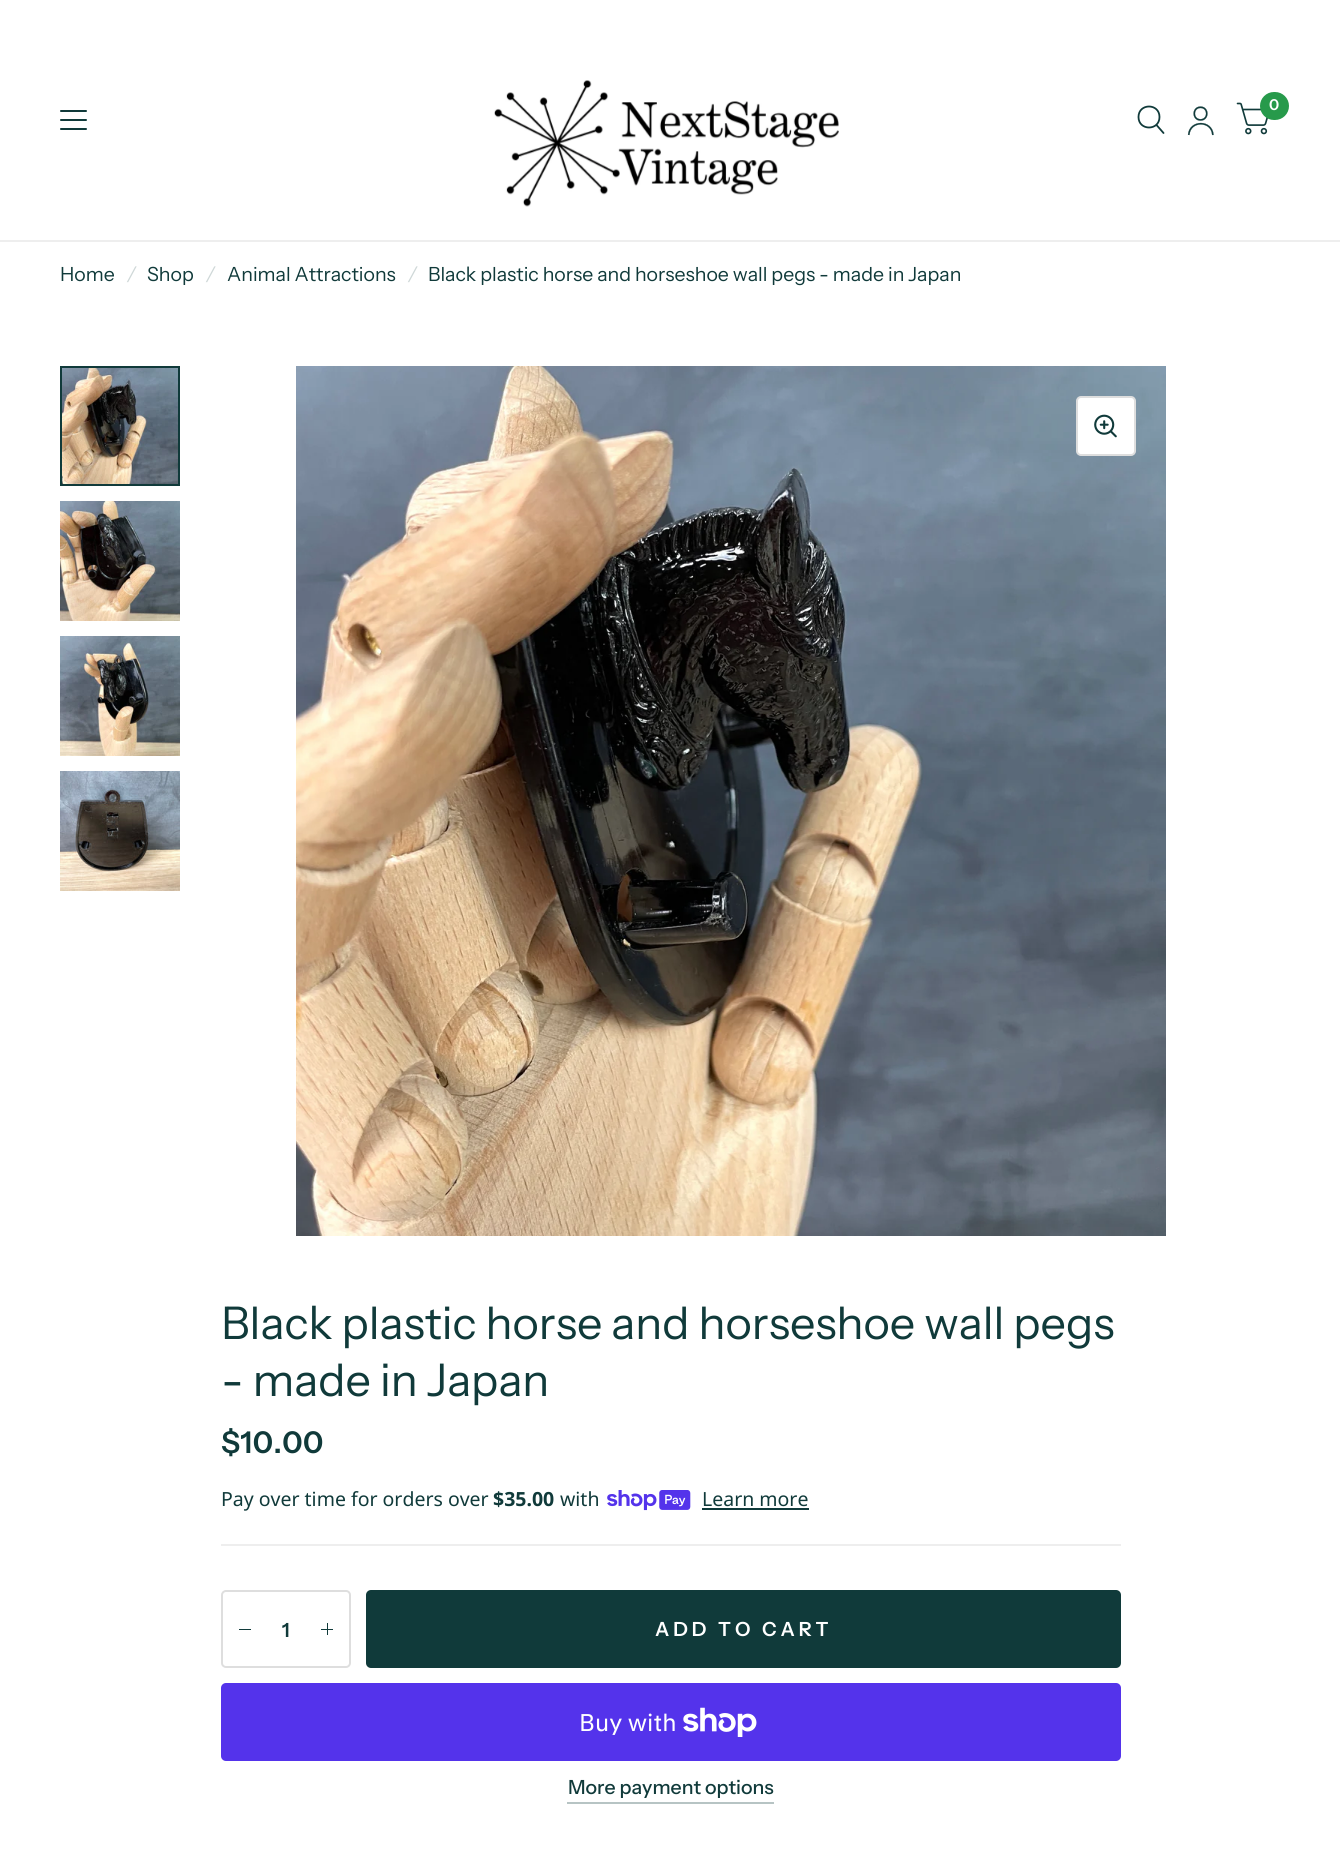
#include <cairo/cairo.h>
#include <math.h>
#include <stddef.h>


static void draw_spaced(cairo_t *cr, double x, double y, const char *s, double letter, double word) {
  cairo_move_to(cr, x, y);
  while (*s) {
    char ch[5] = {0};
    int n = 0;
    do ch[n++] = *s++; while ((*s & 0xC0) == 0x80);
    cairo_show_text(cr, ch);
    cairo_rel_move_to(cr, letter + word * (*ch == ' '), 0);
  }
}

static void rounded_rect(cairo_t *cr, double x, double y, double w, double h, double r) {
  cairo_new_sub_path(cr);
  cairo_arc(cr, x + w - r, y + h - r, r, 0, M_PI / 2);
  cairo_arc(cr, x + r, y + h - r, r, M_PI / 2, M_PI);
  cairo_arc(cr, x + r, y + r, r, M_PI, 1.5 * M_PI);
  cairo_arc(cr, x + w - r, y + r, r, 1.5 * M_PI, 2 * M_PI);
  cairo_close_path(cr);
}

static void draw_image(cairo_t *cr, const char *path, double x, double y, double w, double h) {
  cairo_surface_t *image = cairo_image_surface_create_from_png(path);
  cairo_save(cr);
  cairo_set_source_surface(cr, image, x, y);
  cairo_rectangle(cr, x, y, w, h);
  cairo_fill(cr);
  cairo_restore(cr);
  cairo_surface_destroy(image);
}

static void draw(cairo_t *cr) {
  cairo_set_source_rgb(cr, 1, 1, 1);
  cairo_paint(cr);
  cairo_set_source_rgb(cr, 238 / 255.0, 238 / 255.0, 238 / 255.0);
  cairo_rectangle(cr, 0, 240, 1340, 2);
  cairo_fill(cr);
  draw_image(cr, "images/1.png", 494, 80, 345, 127);
  cairo_new_path(cr);
  cairo_move_to(cr, 1156.5, 125);
  cairo_line_to(cr, 1163.5, 133);
  cairo_move_to(cr, 1159.5, 117);
  cairo_curve_to(cr, 1159.5, 131, 1138.5, 131, 1138.5, 117);
  cairo_curve_to(cr, 1138.5, 103, 1159.5, 103, 1159.5, 117);
  cairo_close_path(cr);
  cairo_set_source_rgb(cr, 16 / 255.0, 58 / 255.0, 58 / 255.0);
  cairo_set_line_width(cr, 1.8);
  cairo_set_line_cap(cr, CAIRO_LINE_CAP_ROUND);
  cairo_set_line_join(cr, CAIRO_LINE_JOIN_ROUND);
  cairo_stroke(cr);
  draw_image(cr, "images/2.png", 1187, 106, 27, 30);
  draw_image(cr, "images/3.png", 1236, 102, 32, 33);
  cairo_set_source_rgb(cr, 39 / 255.0, 154 / 255.0, 75 / 255.0);
  rounded_rect(cr, 1260, 92, 29, 28, 14);
  cairo_fill(cr);
  cairo_set_source_rgb(cr, 16 / 255.0, 58 / 255.0, 58 / 255.0);
  rounded_rect(cr, 60, 110, 27, 2, 1);
  cairo_fill(cr);
  rounded_rect(cr, 60, 119, 27, 2, 1);
  cairo_fill(cr);
  rounded_rect(cr, 60, 128, 27, 2, 1);
  cairo_fill(cr);
  draw_image(cr, "images/4.png", 62, 368, 116, 116);
  cairo_rectangle(cr, 61, 367, 118, 118);
  cairo_set_line_width(cr, 2);
  cairo_set_line_cap(cr, CAIRO_LINE_CAP_BUTT);
  cairo_set_line_join(cr, CAIRO_LINE_JOIN_MITER);
  cairo_stroke(cr);
  draw_image(cr, "images/5.png", 60, 501, 120, 120);
  draw_image(cr, "images/6.png", 60, 636, 120, 120);
  draw_image(cr, "images/7.png", 60, 771, 120, 120);
  draw_image(cr, "images/8.png", 296, 366, 870, 870);
  cairo_set_source_rgb(cr, 1, 1, 1);
  rounded_rect(cr, 1077, 397, 58, 58, 4);
  cairo_fill_preserve(cr);
  cairo_set_source_rgb(cr, 222 / 255.0, 222 / 255.0, 222 / 255.0);
  cairo_stroke(cr);
  draw_image(cr, "images/9.png", 1094, 414, 23, 24);
  cairo_set_source_rgb(cr, 238 / 255.0, 238 / 255.0, 238 / 255.0);
  cairo_rectangle(cr, 221, 1544, 900, 2);
  cairo_fill(cr);
  draw_image(cr, "images/10.png", 607, 1490, 84, 21);
  cairo_set_source_rgb(cr, 16 / 255.0, 58 / 255.0, 58 / 255.0);
  cairo_rectangle(cr, 702, 1508, 107, 2);
  cairo_fill(cr);
  rounded_rect(cr, 222, 1591, 128, 76, 4);
  cairo_set_source_rgb(cr, 222 / 255.0, 222 / 255.0, 222 / 255.0);
  cairo_stroke(cr);
  cairo_set_source_rgb(cr, 16 / 255.0, 58 / 255.0, 58 / 255.0);
  cairo_rectangle(cr, 239, 1629, 12, 1);
  cairo_fill(cr);
  cairo_rectangle(cr, 327, 1623, 1, 12);
  cairo_fill(cr);
  cairo_rectangle(cr, 321, 1629, 12, 1);
  cairo_fill(cr);
  rounded_rect(cr, 366, 1590, 755, 78, 5);
  cairo_fill(cr);
  cairo_set_source_rgb(cr, 84 / 255.0, 51 / 255.0, 235 / 255.0);
  rounded_rect(cr, 221, 1683, 900, 78, 5);
  cairo_fill(cr);
  draw_image(cr, "images/11.png", 683, 1707, 74, 30);
  cairo_set_source_rgb(cr, 183 / 255.0, 196 / 255.0, 196 / 255.0);
  cairo_rectangle(cr, 567, 1802, 207, 2);
  cairo_fill(cr);
  cairo_select_font_face(cr, "Instrument Sans SemiBold", CAIRO_FONT_SLANT_NORMAL, CAIRO_FONT_WEIGHT_NORMAL);
  cairo_set_font_size(cr, 15);
  cairo_set_source_rgb(cr, 1, 1, 1);
  cairo_move_to(cr, 1269, 110);
  cairo_show_text(cr, "0");
  cairo_select_font_face(cr, "Instrument Sans", CAIRO_FONT_SLANT_NORMAL, CAIRO_FONT_WEIGHT_NORMAL);
  cairo_set_font_size(cr, 19.5);
  cairo_set_source_rgb(cr, 16 / 255.0, 58 / 255.0, 58 / 255.0);
  cairo_move_to(cr, 60, 281);
  cairo_show_text(cr, "Home");
  cairo_select_font_face(cr, "Instrument Sans", CAIRO_FONT_SLANT_ITALIC, CAIRO_FONT_WEIGHT_NORMAL);
  cairo_set_source_rgb(cr, 207 / 255.0, 216 / 255.0, 216 / 255.0);
  cairo_move_to(cr, 127, 281);
  cairo_show_text(cr, "/");
  cairo_select_font_face(cr, "Instrument Sans", CAIRO_FONT_SLANT_NORMAL, CAIRO_FONT_WEIGHT_NORMAL);
  cairo_set_source_rgb(cr, 16 / 255.0, 58 / 255.0, 58 / 255.0);
  cairo_move_to(cr, 147, 281);
  cairo_show_text(cr, "Shop");
  cairo_select_font_face(cr, "Instrument Sans", CAIRO_FONT_SLANT_ITALIC, CAIRO_FONT_WEIGHT_NORMAL);
  cairo_set_source_rgb(cr, 207 / 255.0, 216 / 255.0, 216 / 255.0);
  cairo_move_to(cr, 206, 281);
  cairo_show_text(cr, "/");
  cairo_select_font_face(cr, "Instrument Sans", CAIRO_FONT_SLANT_NORMAL, CAIRO_FONT_WEIGHT_NORMAL);
  cairo_set_source_rgb(cr, 16 / 255.0, 58 / 255.0, 58 / 255.0);
  cairo_move_to(cr, 227, 281);
  cairo_show_text(cr, "Animal Attractions");
  cairo_select_font_face(cr, "Instrument Sans", CAIRO_FONT_SLANT_ITALIC, CAIRO_FONT_WEIGHT_NORMAL);
  cairo_set_source_rgb(cr, 207 / 255.0, 216 / 255.0, 216 / 255.0);
  cairo_move_to(cr, 408, 281);
  cairo_show_text(cr, "/");
  cairo_select_font_face(cr, "Instrument Sans", CAIRO_FONT_SLANT_NORMAL, CAIRO_FONT_WEIGHT_NORMAL);
  cairo_set_source_rgb(cr, 16 / 255.0, 58 / 255.0, 58 / 255.0);
  cairo_move_to(cr, 428, 281);
  cairo_show_text(cr, "Black plastic horse and horseshoe wall pegs - made in Japan");
  cairo_set_font_size(cr, 45);
  cairo_move_to(cr, 221, 1339);
  cairo_show_text(cr, "Black plastic horse and horseshoe wall pegs");
  cairo_move_to(cr, 221, 1396);
  cairo_show_text(cr, "- made in Japan");
  cairo_select_font_face(cr, "Instrument Sans SemiBold", CAIRO_FONT_SLANT_NORMAL, CAIRO_FONT_WEIGHT_NORMAL);
  cairo_set_font_size(cr, 30);
  draw_spaced(cr, 221, 1453, "$10.00", 0.5, 0);
  cairo_select_font_face(cr, "Noto Sans", CAIRO_FONT_SLANT_NORMAL, CAIRO_FONT_WEIGHT_NORMAL);
  cairo_set_font_size(cr, 19.5);
  cairo_move_to(cr, 221, 1506);
  cairo_show_text(cr, "Pay over time for orders over");
  cairo_select_font_face(cr, "Noto Sans", CAIRO_FONT_SLANT_NORMAL, CAIRO_FONT_WEIGHT_BOLD);
  cairo_move_to(cr, 493, 1506);
  cairo_show_text(cr, "$35.00");
  cairo_select_font_face(cr, "Noto Sans", CAIRO_FONT_SLANT_NORMAL, CAIRO_FONT_WEIGHT_NORMAL);
  cairo_move_to(cr, 560, 1506);
  cairo_show_text(cr, "with");
  cairo_move_to(cr, 702, 1506);
  cairo_show_text(cr, "Learn more");
  cairo_select_font_face(cr, "Instrument Sans SemiBold", CAIRO_FONT_SLANT_NORMAL, CAIRO_FONT_WEIGHT_NORMAL);
  cairo_move_to(cr, 282, 1637);
  cairo_show_text(cr, "1");
  cairo_set_source_rgb(cr, 1, 1, 1);
  draw_spaced(cr, 655, 1636, "ADD TO CART", 3.9, 0);
  cairo_select_font_face(cr, "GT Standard", CAIRO_FONT_SLANT_NORMAL, CAIRO_FONT_WEIGHT_NORMAL);
  cairo_set_font_size(cr, 24);
  cairo_move_to(cr, 579, 1731);
  cairo_show_text(cr, "Buy with");
  cairo_select_font_face(cr, "Instrument Sans Medium", CAIRO_FONT_SLANT_NORMAL, CAIRO_FONT_WEIGHT_NORMAL);
  cairo_set_font_size(cr, 19.5);
  cairo_set_source_rgb(cr, 16 / 255.0, 58 / 255.0, 58 / 255.0);
  cairo_move_to(cr, 568, 1794);
  cairo_show_text(cr, "More payment options");
}

int main(void) {
  cairo_surface_t *surface = cairo_image_surface_create(CAIRO_FORMAT_RGB24, 1340, 1862);
  cairo_t *cr = cairo_create(surface);
  cairo_font_options_t *options = cairo_font_options_create();
  cairo_font_options_set_hint_metrics(options, CAIRO_HINT_METRICS_OFF);
  cairo_font_options_set_hint_style(options, CAIRO_HINT_STYLE_NONE);
  cairo_set_font_options(cr, options);
  cairo_set_miter_limit(cr, 4);
  draw(cr);
  cairo_surface_write_to_png(surface, "out.png");
  cairo_font_options_destroy(options);
  cairo_destroy(cr);
  cairo_surface_destroy(surface);
  return 0;
}
